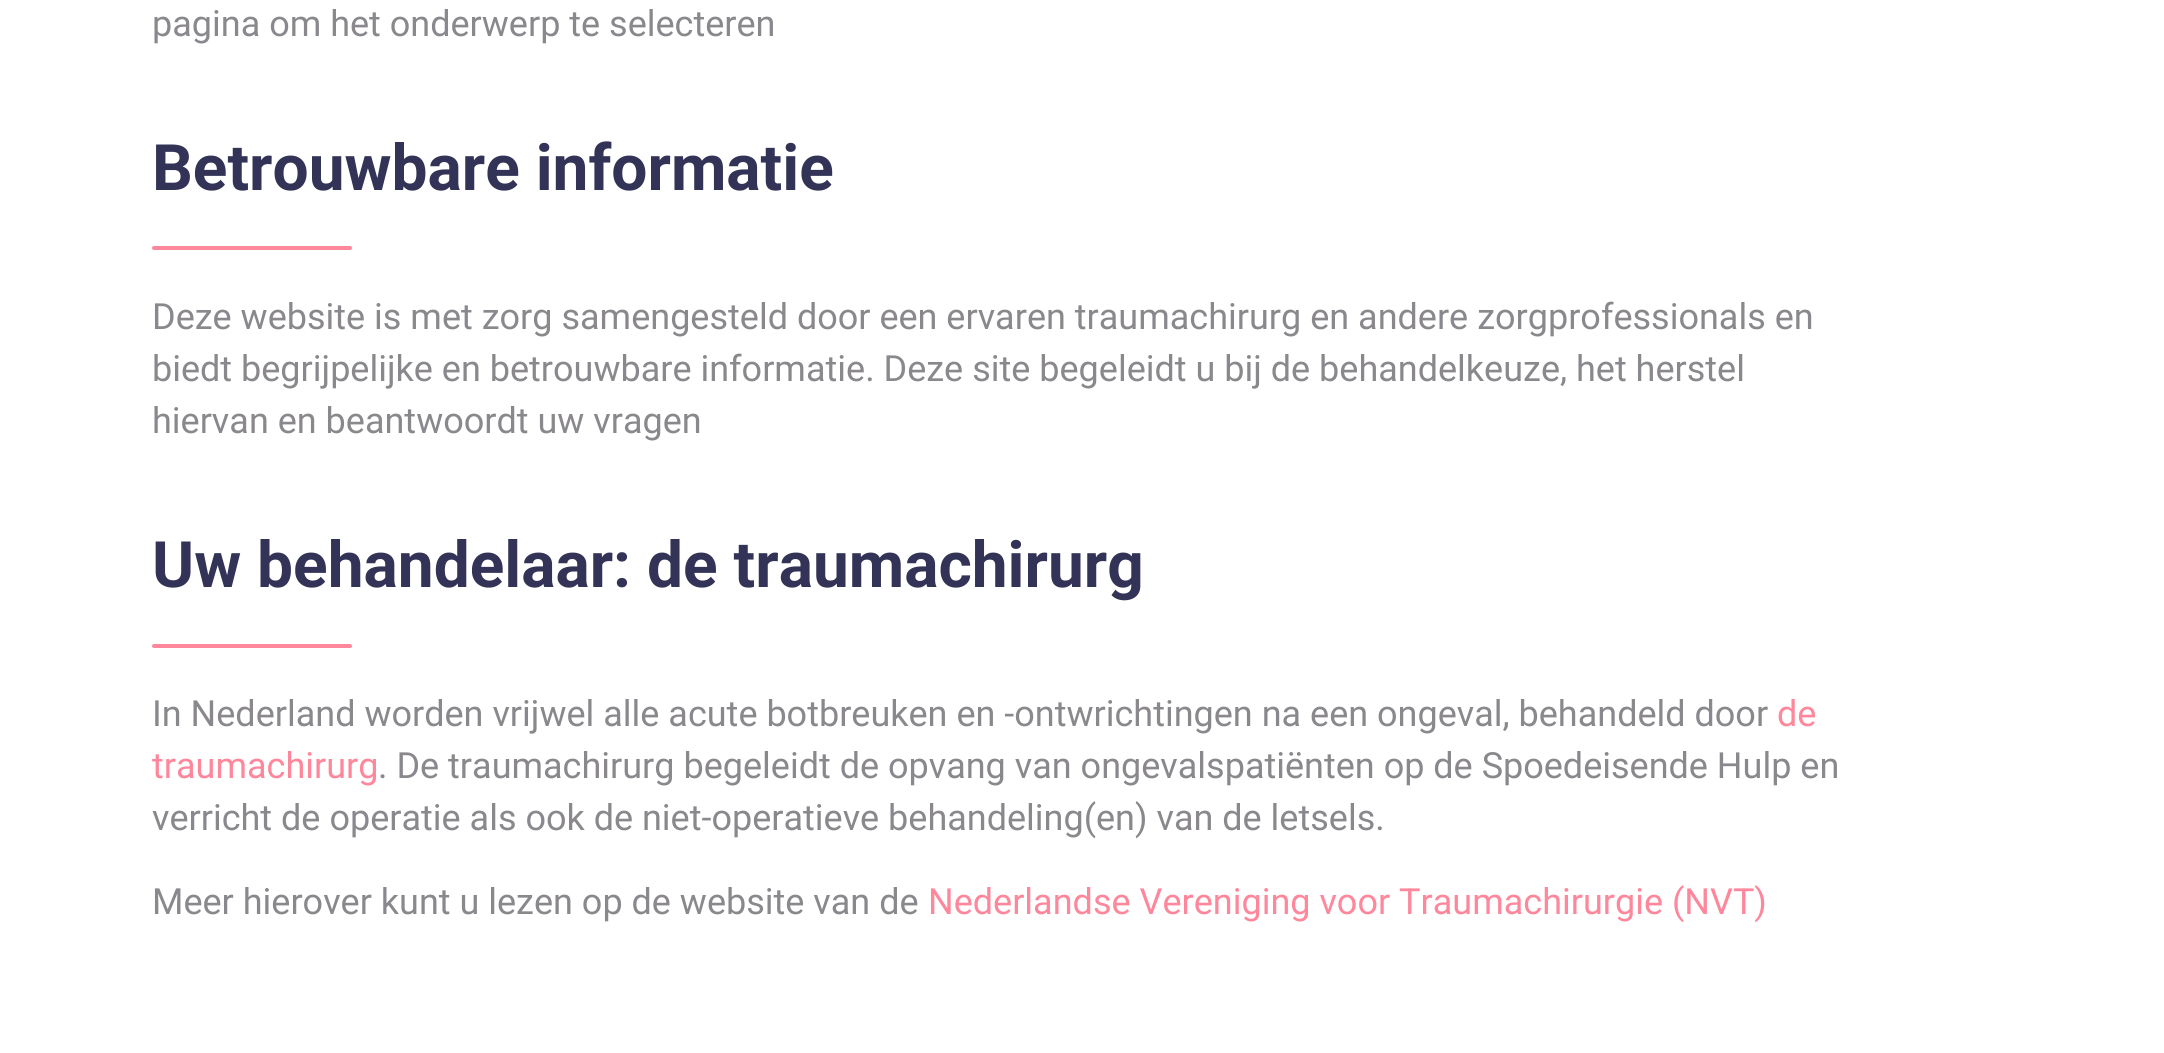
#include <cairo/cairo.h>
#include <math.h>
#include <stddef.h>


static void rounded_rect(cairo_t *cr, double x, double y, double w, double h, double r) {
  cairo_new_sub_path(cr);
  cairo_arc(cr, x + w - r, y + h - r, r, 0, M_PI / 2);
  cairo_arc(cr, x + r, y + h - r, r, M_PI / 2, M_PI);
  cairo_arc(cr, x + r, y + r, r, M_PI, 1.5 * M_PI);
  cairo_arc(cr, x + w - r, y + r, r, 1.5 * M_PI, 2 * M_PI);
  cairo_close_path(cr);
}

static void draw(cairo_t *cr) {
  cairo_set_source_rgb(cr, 1, 1, 1);
  cairo_paint(cr);
  cairo_set_source_rgb(cr, 254 / 255.0, 135 / 255.0, 155 / 255.0);
  rounded_rect(cr, 152, 246, 200, 4, 2);
  cairo_fill(cr);
  rounded_rect(cr, 152, 644, 200, 4, 2);
  cairo_fill(cr);
  cairo_select_font_face(cr, "Roboto", CAIRO_FONT_SLANT_NORMAL, CAIRO_FONT_WEIGHT_NORMAL);
  cairo_set_font_size(cr, 36);
  cairo_set_source_rgb(cr, 138 / 255.0, 136 / 255.0, 140 / 255.0);
  cairo_move_to(cr, 152, 36);
  cairo_show_text(cr, "pagina om het onderwerp te selecteren");
  cairo_select_font_face(cr, "Roboto", CAIRO_FONT_SLANT_NORMAL, CAIRO_FONT_WEIGHT_BOLD);
  cairo_set_font_size(cr, 64);
  cairo_set_source_rgb(cr, 50 / 255.0, 51 / 255.0, 86 / 255.0);
  cairo_move_to(cr, 152, 190);
  cairo_show_text(cr, "Betrouwbare informatie");
  cairo_select_font_face(cr, "Roboto", CAIRO_FONT_SLANT_NORMAL, CAIRO_FONT_WEIGHT_NORMAL);
  cairo_set_font_size(cr, 36);
  cairo_set_source_rgb(cr, 138 / 255.0, 136 / 255.0, 140 / 255.0);
  cairo_move_to(cr, 152, 329);
  cairo_show_text(cr, "Deze website is met zorg samengesteld door een ervaren traumachirurg en andere zorgprofessionals en");
  cairo_move_to(cr, 152, 381);
  cairo_show_text(cr, "biedt begrijpelijke en betrouwbare informatie. Deze site begeleidt u bij de behandelkeuze, het herstel");
  cairo_move_to(cr, 152, 433);
  cairo_show_text(cr, "hiervan en beantwoordt uw vragen");
  cairo_select_font_face(cr, "Roboto", CAIRO_FONT_SLANT_NORMAL, CAIRO_FONT_WEIGHT_BOLD);
  cairo_set_font_size(cr, 64);
  cairo_set_source_rgb(cr, 50 / 255.0, 51 / 255.0, 86 / 255.0);
  cairo_move_to(cr, 152, 587);
  cairo_show_text(cr, "Uw behandelaar: de traumachirurg");
  cairo_select_font_face(cr, "Roboto", CAIRO_FONT_SLANT_NORMAL, CAIRO_FONT_WEIGHT_NORMAL);
  cairo_set_font_size(cr, 36);
  cairo_set_source_rgb(cr, 138 / 255.0, 136 / 255.0, 140 / 255.0);
  cairo_move_to(cr, 152, 726);
  cairo_show_text(cr, "In Nederland worden vrijwel alle acute botbreuken en -ontwrichtingen na een ongeval, behandeld door");
  cairo_set_source_rgb(cr, 254 / 255.0, 135 / 255.0, 155 / 255.0);
  cairo_move_to(cr, 1777, 726);
  cairo_show_text(cr, "de");
  cairo_move_to(cr, 152, 778);
  cairo_show_text(cr, "traumachirurg");
  cairo_set_source_rgb(cr, 138 / 255.0, 136 / 255.0, 140 / 255.0);
  cairo_move_to(cr, 378, 778);
  cairo_show_text(cr, ". De traumachirurg begeleidt de opvang van ongevalspatiënten op de Spoedeisende Hulp en");
  cairo_move_to(cr, 152, 830);
  cairo_show_text(cr, "verricht de operatie als ook de niet-operatieve behandeling(en) van de letsels.");
  cairo_move_to(cr, 152, 914);
  cairo_show_text(cr, "Meer hierover kunt u lezen op de website van de");
  cairo_set_source_rgb(cr, 254 / 255.0, 135 / 255.0, 155 / 255.0);
  cairo_move_to(cr, 928, 914);
  cairo_show_text(cr, "Nederlandse Vereniging voor Traumachirurgie (NVT)");
}

int main(void) {
  cairo_surface_t *surface = cairo_image_surface_create(CAIRO_FORMAT_RGB24, 2164, 1053);
  cairo_t *cr = cairo_create(surface);
  cairo_font_options_t *options = cairo_font_options_create();
  cairo_font_options_set_hint_metrics(options, CAIRO_HINT_METRICS_OFF);
  cairo_font_options_set_hint_style(options, CAIRO_HINT_STYLE_NONE);
  cairo_set_font_options(cr, options);
  cairo_set_miter_limit(cr, 4);
  draw(cr);
  cairo_surface_write_to_png(surface, "out.png");
  cairo_font_options_destroy(options);
  cairo_destroy(cr);
  cairo_surface_destroy(surface);
  return 0;
}
